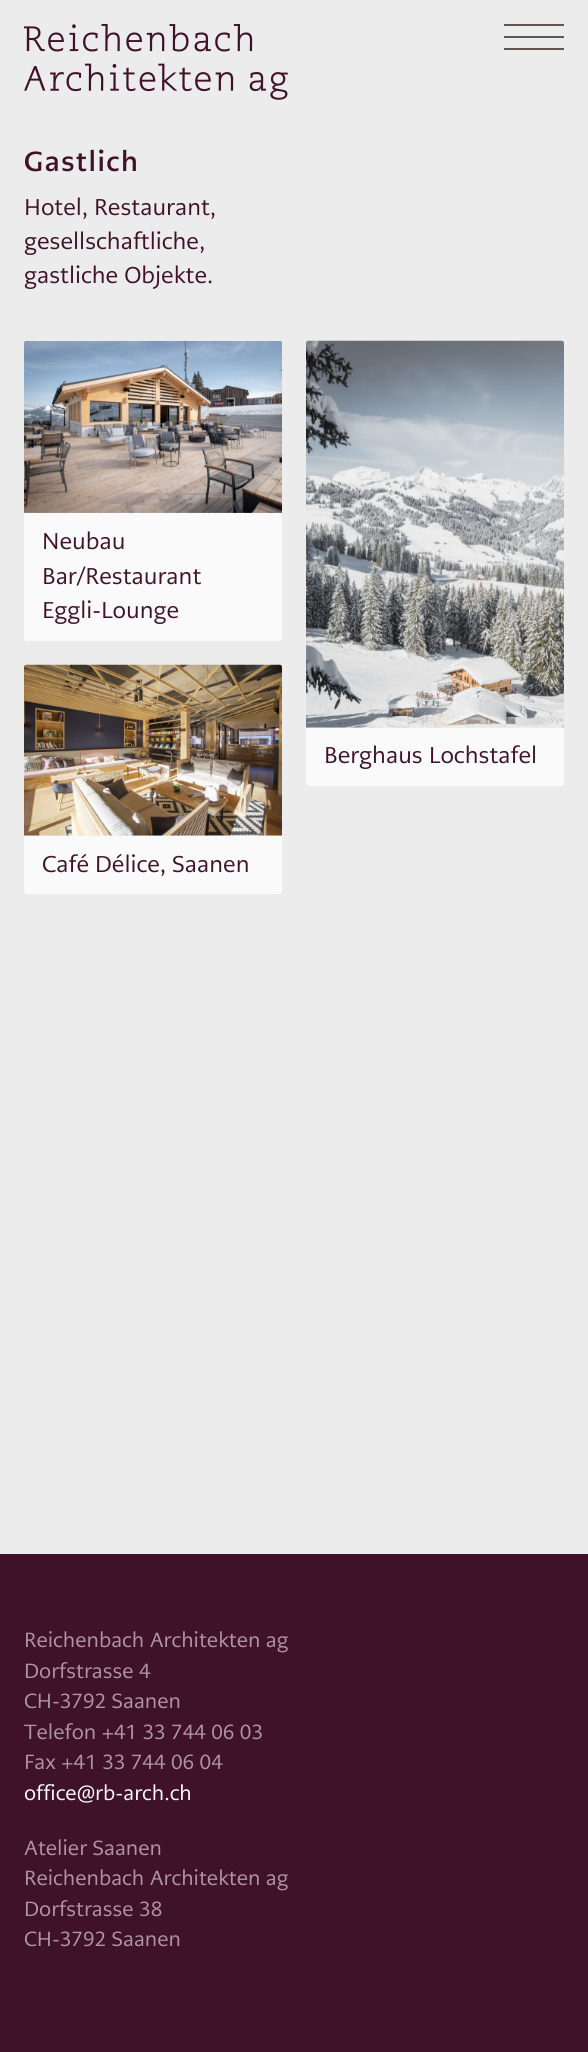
#include <cairo/cairo.h>
#include <math.h>
#include <stddef.h>


static void draw_spaced(cairo_t *cr, double x, double y, const char *s, double letter, double word) {
  cairo_move_to(cr, x, y);
  while (*s) {
    char ch[5] = {0};
    int n = 0;
    do ch[n++] = *s++; while ((*s & 0xC0) == 0x80);
    cairo_show_text(cr, ch);
    cairo_rel_move_to(cr, letter + word * (*ch == ' '), 0);
  }
}

static void draw_image(cairo_t *cr, const char *path, double x, double y, double w, double h) {
  cairo_surface_t *image = cairo_image_surface_create_from_png(path);
  cairo_save(cr);
  cairo_set_source_surface(cr, image, x, y);
  cairo_rectangle(cr, x, y, w, h);
  cairo_fill(cr);
  cairo_restore(cr);
  cairo_surface_destroy(image);
}

static void draw(cairo_t *cr) {
  cairo_set_source_rgb(cr, 236 / 255.0, 236 / 255.0, 236 / 255.0);
  cairo_paint(cr);
  draw_image(cr, "images/1.png", 24, 24, 264, 76);
  cairo_set_source_rgb(cr, 98 / 255.0, 85 / 255.0, 79 / 255.0);
  cairo_rectangle(cr, 504, 24, 60, 2);
  cairo_fill(cr);
  cairo_rectangle(cr, 504, 36, 60, 2);
  cairo_fill(cr);
  cairo_rectangle(cr, 504, 48, 60, 2);
  cairo_fill(cr);
  draw_image(cr, "images/2.png", 24, 341, 258, 172);
  cairo_set_source_rgb(cr, 250 / 255.0, 250 / 255.0, 250 / 255.0);
  cairo_new_path(cr);
  cairo_move_to(cr, 24, 513);
  cairo_line_to(cr, 282, 513);
  cairo_line_to(cr, 282, 638);
  cairo_curve_to(cr, 282, 639.5, 280.5, 641, 279, 641);
  cairo_line_to(cr, 27, 641);
  cairo_curve_to(cr, 25.5, 641, 24, 639.5, 24, 638);
  cairo_close_path(cr);
  cairo_fill(cr);
  draw_image(cr, "images/3.png", 24, 664, 258, 172);
  cairo_new_path(cr);
  cairo_move_to(cr, 24, 836);
  cairo_line_to(cr, 282, 836);
  cairo_line_to(cr, 282, 891);
  cairo_curve_to(cr, 282, 892.5, 280.5, 894, 279, 894);
  cairo_line_to(cr, 27, 894);
  cairo_curve_to(cr, 25.5, 894, 24, 892.5, 24, 891);
  cairo_close_path(cr);
  cairo_fill(cr);
  draw_image(cr, "images/4.png", 306, 340, 258, 388);
  cairo_new_path(cr);
  cairo_move_to(cr, 306, 728);
  cairo_line_to(cr, 564, 728);
  cairo_line_to(cr, 564, 783);
  cairo_curve_to(cr, 564, 784.5, 562.5, 786, 561, 786);
  cairo_line_to(cr, 309, 786);
  cairo_curve_to(cr, 307.5, 786, 306, 784.5, 306, 783);
  cairo_close_path(cr);
  cairo_fill(cr);
  cairo_set_source_rgb(cr, 63 / 255.0, 18 / 255.0, 42 / 255.0);
  cairo_rectangle(cr, 0, 1554, 588, 498);
  cairo_fill(cr);
  cairo_select_font_face(cr, "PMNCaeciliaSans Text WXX", CAIRO_FONT_SLANT_NORMAL, CAIRO_FONT_WEIGHT_BOLD);
  cairo_set_font_size(cr, 27.5);
  draw_spaced(cr, 24, 171, "Gastlich", 1.5, 0);
  cairo_select_font_face(cr, "PMNCaeciliaSans Text WXX", CAIRO_FONT_SLANT_NORMAL, CAIRO_FONT_WEIGHT_NORMAL);
  cairo_set_font_size(cr, 22.75);
  cairo_move_to(cr, 24, 215);
  cairo_show_text(cr, "Hotel, Restaurant,");
  cairo_move_to(cr, 24, 249);
  cairo_show_text(cr, "gesellschaftliche,");
  cairo_move_to(cr, 24, 283);
  cairo_show_text(cr, "gastliche Objekte.");
  cairo_move_to(cr, 42, 549);
  cairo_show_text(cr, "Neubau");
  cairo_move_to(cr, 42, 584);
  cairo_show_text(cr, "Bar/Restaurant");
  cairo_move_to(cr, 42, 618);
  cairo_show_text(cr, "Eggli-Lounge");
  cairo_move_to(cr, 42, 872);
  cairo_show_text(cr, "Café Délice, Saanen");
  cairo_move_to(cr, 324, 763);
  cairo_show_text(cr, "Berghaus Lochstafel");
  cairo_set_font_size(cr, 20.4);
  cairo_set_source_rgb(cr, 175 / 255.0, 149 / 255.0, 163 / 255.0);
  cairo_move_to(cr, 24, 1647);
  cairo_show_text(cr, "Reichenbach Architekten ag");
  cairo_move_to(cr, 24, 1678);
  cairo_show_text(cr, "Dorfstrasse 4");
  cairo_move_to(cr, 24, 1708);
  cairo_show_text(cr, "CH-3792 Saanen");
  cairo_move_to(cr, 24, 1739);
  cairo_show_text(cr, "Telefon +41 33 744 06 03");
  cairo_move_to(cr, 24, 1769);
  cairo_show_text(cr, "Fax +41 33 744 06 04");
  cairo_set_source_rgb(cr, 1, 1, 1);
  cairo_move_to(cr, 24, 1800);
  cairo_show_text(cr, "office@rb-arch.ch");
  cairo_set_source_rgb(cr, 175 / 255.0, 149 / 255.0, 163 / 255.0);
  cairo_move_to(cr, 24, 1855);
  cairo_show_text(cr, "Atelier Saanen");
  cairo_move_to(cr, 24, 1885);
  cairo_show_text(cr, "Reichenbach Architekten ag");
  cairo_move_to(cr, 24, 1916);
  cairo_show_text(cr, "Dorfstrasse 38");
  cairo_move_to(cr, 24, 1946);
  cairo_show_text(cr, "CH-3792 Saanen");
}

int main(void) {
  cairo_surface_t *surface = cairo_image_surface_create(CAIRO_FORMAT_RGB24, 588, 2052);
  cairo_t *cr = cairo_create(surface);
  cairo_font_options_t *options = cairo_font_options_create();
  cairo_font_options_set_hint_metrics(options, CAIRO_HINT_METRICS_OFF);
  cairo_font_options_set_hint_style(options, CAIRO_HINT_STYLE_NONE);
  cairo_set_font_options(cr, options);
  cairo_set_miter_limit(cr, 4);
  draw(cr);
  cairo_surface_write_to_png(surface, "out.png");
  cairo_font_options_destroy(options);
  cairo_destroy(cr);
  cairo_surface_destroy(surface);
  return 0;
}
